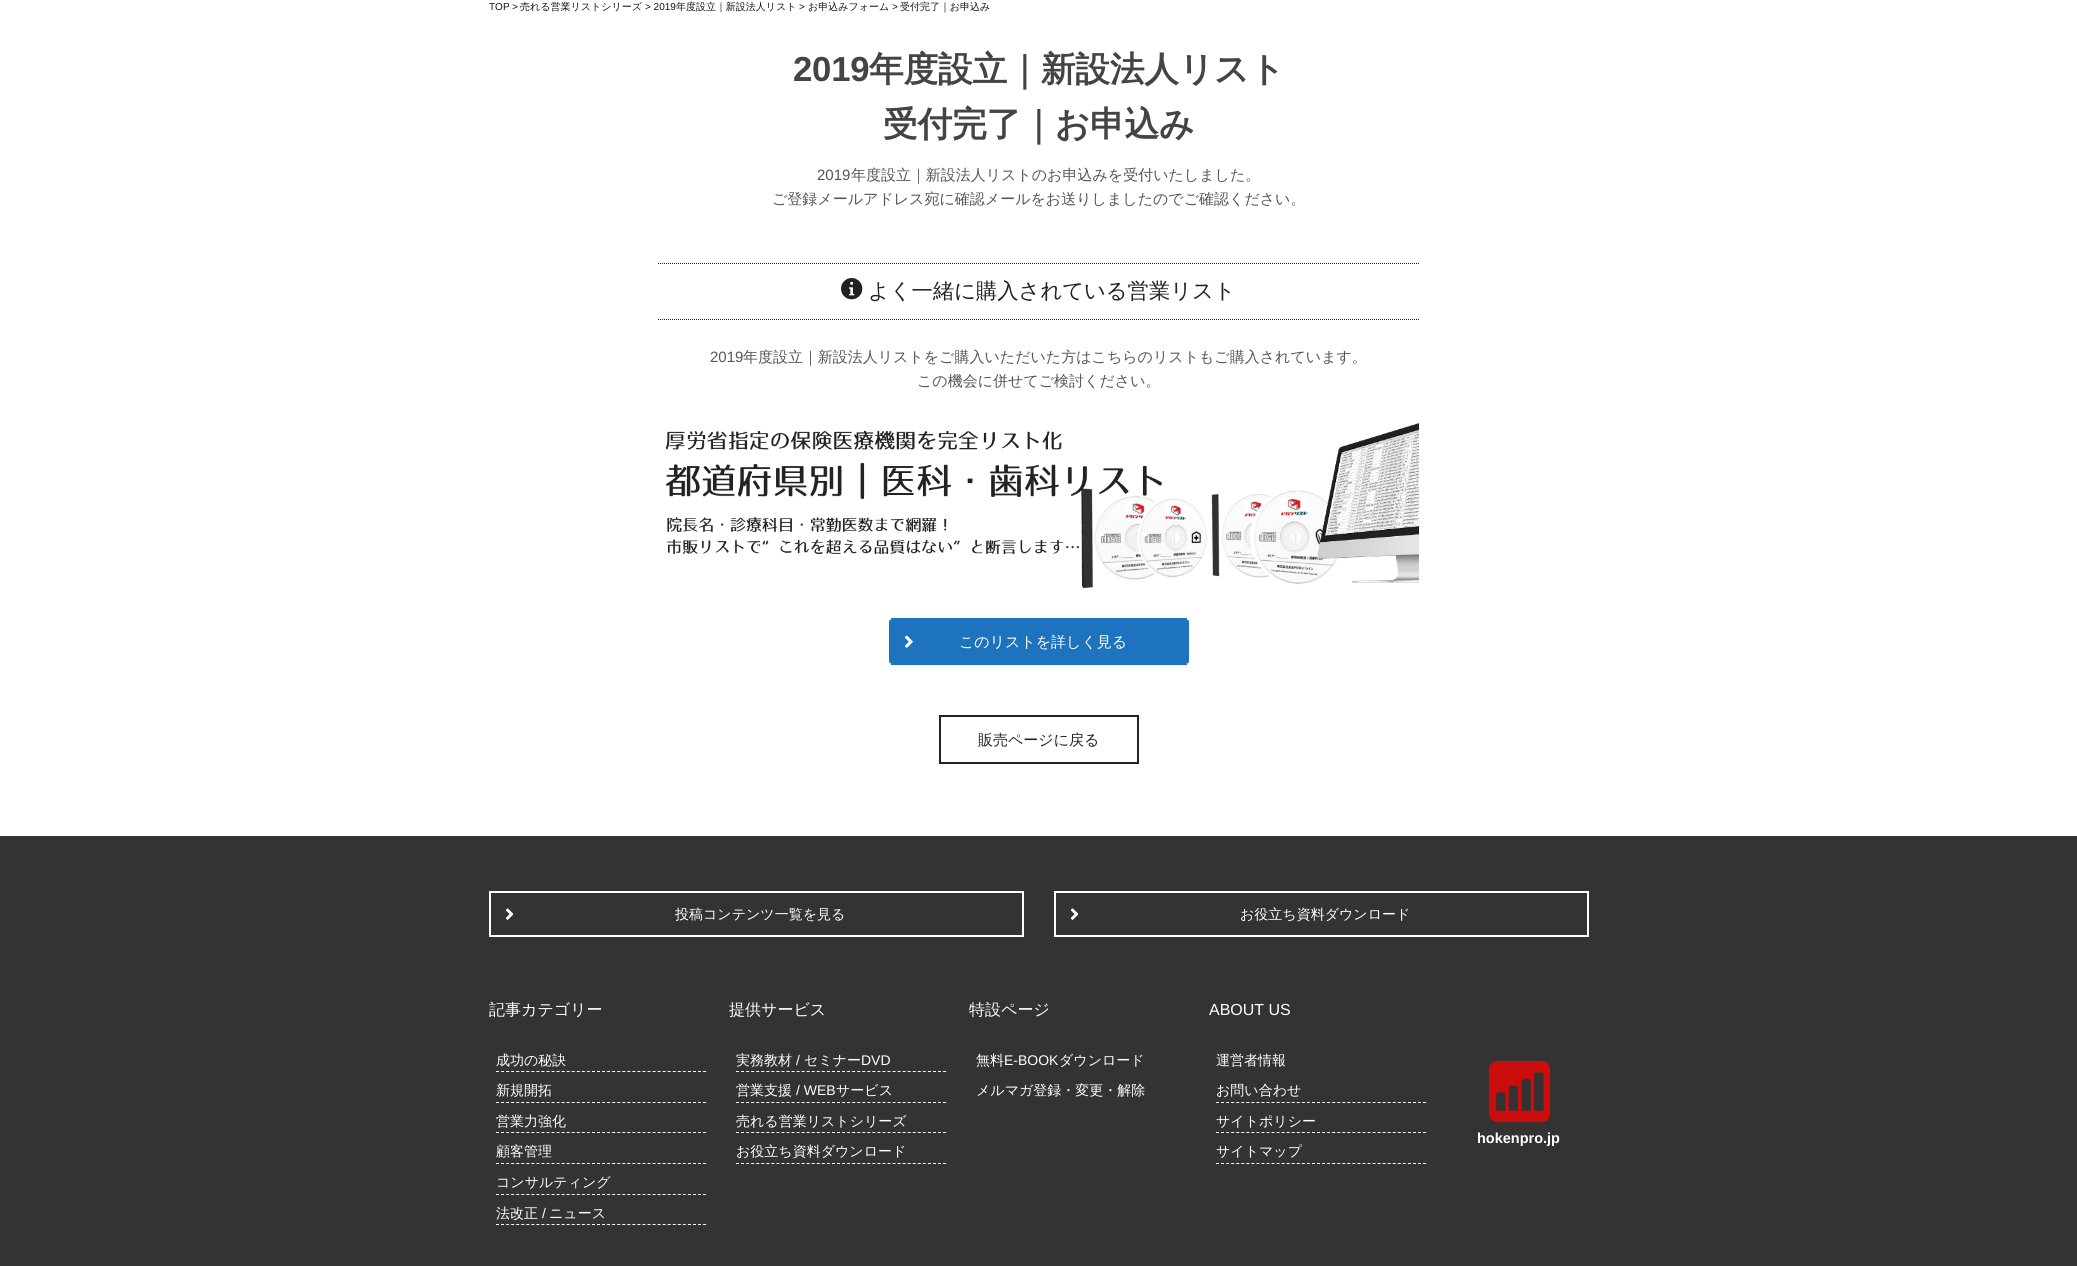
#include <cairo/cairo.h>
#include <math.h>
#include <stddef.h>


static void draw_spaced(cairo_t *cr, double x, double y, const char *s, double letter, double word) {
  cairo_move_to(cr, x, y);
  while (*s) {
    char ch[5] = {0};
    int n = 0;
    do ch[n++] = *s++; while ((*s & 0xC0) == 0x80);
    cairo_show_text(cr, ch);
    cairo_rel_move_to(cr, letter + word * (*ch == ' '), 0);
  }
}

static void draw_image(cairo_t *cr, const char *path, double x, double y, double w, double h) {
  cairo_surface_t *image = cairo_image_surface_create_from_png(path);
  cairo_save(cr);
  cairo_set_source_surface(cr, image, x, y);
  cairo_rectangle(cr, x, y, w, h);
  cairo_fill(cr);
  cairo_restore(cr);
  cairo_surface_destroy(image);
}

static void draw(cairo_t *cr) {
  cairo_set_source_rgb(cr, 1, 1, 1);
  cairo_paint(cr);
  cairo_new_path(cr);
  cairo_move_to(cr, 658, 263.5);
  cairo_line_to(cr, 1419, 263.5);
  cairo_set_source_rgb(cr, 34 / 255.0, 34 / 255.0, 34 / 255.0);
  cairo_set_line_width(cr, 1);
  cairo_set_dash(cr, (double[]){1, 1}, 2, 0);
  cairo_stroke(cr);
  cairo_new_path(cr);
  cairo_move_to(cr, 658, 319.5);
  cairo_line_to(cr, 1419, 319.5);
  cairo_stroke(cr);
  draw_image(cr, "images/1.png", 841, 278, 22, 22);
  draw_image(cr, "images/2.png", 665, 423, 754, 166);
  cairo_set_source_rgb(cr, 30 / 255.0, 115 / 255.0, 190 / 255.0);
  cairo_new_path(cr);
  cairo_move_to(cr, 893, 619);
  cairo_line_to(cr, 1185, 619);
  cairo_curve_to(cr, 1187, 619, 1189, 620, 1189, 622);
  cairo_line_to(cr, 1189, 661);
  cairo_curve_to(cr, 1189, 663, 1187, 664, 1185, 664);
  cairo_line_to(cr, 893, 664);
  cairo_curve_to(cr, 891, 664, 889, 663, 889, 661);
  cairo_line_to(cr, 889, 622);
  cairo_curve_to(cr, 889, 620, 891, 619, 893, 619);
  cairo_close_path(cr);
  cairo_fill(cr);
  cairo_rectangle(cr, 891, 618, 296, 1);
  cairo_fill(cr);
  cairo_rectangle(cr, 891, 664, 296, 1);
  cairo_fill(cr);
  draw_image(cr, "images/3.png", 905, 635, 8, 13);
  cairo_rectangle(cr, 940, 716, 198, 47);
  cairo_set_source_rgb(cr, 34 / 255.0, 34 / 255.0, 34 / 255.0);
  cairo_set_line_width(cr, 2);
  cairo_set_dash(cr, NULL, 0, 0);
  cairo_stroke(cr);
  cairo_set_source_rgb(cr, 51 / 255.0, 51 / 255.0, 51 / 255.0);
  cairo_rectangle(cr, 0, 836, 2077, 430);
  cairo_fill(cr);
  cairo_rectangle(cr, 490, 892, 533, 44);
  cairo_set_source_rgb(cr, 1, 1, 1);
  cairo_stroke(cr);
  draw_image(cr, "images/4.png", 505, 908, 9, 12);
  cairo_rectangle(cr, 1055, 892, 533, 44);
  cairo_stroke(cr);
  draw_image(cr, "images/4.png", 1070, 908, 9, 12);
  cairo_new_path(cr);
  cairo_move_to(cr, 496, 1071.5);
  cairo_line_to(cr, 706, 1071.5);
  cairo_set_line_width(cr, 1);
  cairo_set_dash(cr, (double[]){3, 2.05}, 2, 0);
  cairo_stroke(cr);
  cairo_new_path(cr);
  cairo_move_to(cr, 496, 1102.5);
  cairo_line_to(cr, 706, 1102.5);
  cairo_stroke(cr);
  cairo_new_path(cr);
  cairo_move_to(cr, 496, 1132.5);
  cairo_line_to(cr, 706, 1132.5);
  cairo_stroke(cr);
  cairo_new_path(cr);
  cairo_move_to(cr, 496, 1163.5);
  cairo_line_to(cr, 706, 1163.5);
  cairo_stroke(cr);
  cairo_new_path(cr);
  cairo_move_to(cr, 496, 1194.5);
  cairo_line_to(cr, 706, 1194.5);
  cairo_stroke(cr);
  cairo_new_path(cr);
  cairo_move_to(cr, 496, 1224.5);
  cairo_line_to(cr, 706, 1224.5);
  cairo_stroke(cr);
  cairo_new_path(cr);
  cairo_move_to(cr, 736, 1071.5);
  cairo_line_to(cr, 946, 1071.5);
  cairo_stroke(cr);
  cairo_new_path(cr);
  cairo_move_to(cr, 736, 1102.5);
  cairo_line_to(cr, 946, 1102.5);
  cairo_stroke(cr);
  cairo_new_path(cr);
  cairo_move_to(cr, 736, 1132.5);
  cairo_line_to(cr, 946, 1132.5);
  cairo_stroke(cr);
  cairo_new_path(cr);
  cairo_move_to(cr, 736, 1163.5);
  cairo_line_to(cr, 946, 1163.5);
  cairo_stroke(cr);
  cairo_new_path(cr);
  cairo_move_to(cr, 1216, 1102.5);
  cairo_line_to(cr, 1426, 1102.5);
  cairo_stroke(cr);
  cairo_new_path(cr);
  cairo_move_to(cr, 1216, 1132.5);
  cairo_line_to(cr, 1426, 1132.5);
  cairo_stroke(cr);
  cairo_new_path(cr);
  cairo_move_to(cr, 1216, 1163.5);
  cairo_line_to(cr, 1426, 1163.5);
  cairo_stroke(cr);
  draw_image(cr, "images/5.png", 1488, 1060, 63, 63);
  cairo_select_font_face(cr, "Liberation Sans", CAIRO_FONT_SLANT_NORMAL, CAIRO_FONT_WEIGHT_NORMAL);
  cairo_set_font_size(cr, 10);
  cairo_set_source_rgb(cr, 17 / 255.0, 17 / 255.0, 17 / 255.0);
  cairo_move_to(cr, 489, 10);
  cairo_show_text(cr, "TOP");
  cairo_move_to(cr, 512, 10);
  cairo_show_text(cr, ">");
  cairo_select_font_face(cr, "WenQuanYi Zen Hei Medium", CAIRO_FONT_SLANT_NORMAL, CAIRO_FONT_WEIGHT_NORMAL);
  cairo_move_to(cr, 520, 10);
  cairo_show_text(cr, "売れる営業リストシリーズ");
  cairo_select_font_face(cr, "Liberation Sans", CAIRO_FONT_SLANT_NORMAL, CAIRO_FONT_WEIGHT_NORMAL);
  cairo_move_to(cr, 645, 10);
  cairo_show_text(cr, "> 2019");
  cairo_select_font_face(cr, "WenQuanYi Zen Hei Medium", CAIRO_FONT_SLANT_NORMAL, CAIRO_FONT_WEIGHT_NORMAL);
  cairo_move_to(cr, 676, 10);
  cairo_show_text(cr, "年度設立｜新設法人リスト");
  cairo_select_font_face(cr, "Liberation Sans", CAIRO_FONT_SLANT_NORMAL, CAIRO_FONT_WEIGHT_NORMAL);
  cairo_move_to(cr, 799, 10);
  cairo_show_text(cr, ">");
  cairo_select_font_face(cr, "WenQuanYi Zen Hei Medium", CAIRO_FONT_SLANT_NORMAL, CAIRO_FONT_WEIGHT_NORMAL);
  cairo_move_to(cr, 808, 10);
  cairo_show_text(cr, "お申込みフォーム");
  cairo_select_font_face(cr, "Liberation Sans", CAIRO_FONT_SLANT_NORMAL, CAIRO_FONT_WEIGHT_NORMAL);
  cairo_move_to(cr, 892, 10);
  cairo_show_text(cr, ">");
  cairo_select_font_face(cr, "WenQuanYi Zen Hei Medium", CAIRO_FONT_SLANT_NORMAL, CAIRO_FONT_WEIGHT_NORMAL);
  cairo_move_to(cr, 900, 10);
  cairo_show_text(cr, "受付完了｜お申込み");
  cairo_select_font_face(cr, "Liberation Sans", CAIRO_FONT_SLANT_NORMAL, CAIRO_FONT_WEIGHT_BOLD);
  cairo_set_font_size(cr, 34.75);
  cairo_set_source_rgb(cr, 68 / 255.0, 68 / 255.0, 68 / 255.0);
  draw_spaced(cr, 793, 81, "2019", -0.25, 0);
  cairo_select_font_face(cr, "WenQuanYi Zen Hei", CAIRO_FONT_SLANT_NORMAL, CAIRO_FONT_WEIGHT_BOLD);
  draw_spaced(cr, 869, 81, "年度設立｜新設法人リスト", -0.25, 0);
  draw_spaced(cr, 883, 136, "受付完了｜お申込み", -0.25, 0);
  cairo_select_font_face(cr, "Liberation Sans", CAIRO_FONT_SLANT_NORMAL, CAIRO_FONT_WEIGHT_NORMAL);
  cairo_set_font_size(cr, 15);
  cairo_set_source_rgb(cr, 85 / 255.0, 85 / 255.0, 85 / 255.0);
  cairo_move_to(cr, 817, 180);
  cairo_show_text(cr, "2019");
  cairo_select_font_face(cr, "WenQuanYi Zen Hei Medium", CAIRO_FONT_SLANT_NORMAL, CAIRO_FONT_WEIGHT_NORMAL);
  cairo_move_to(cr, 851, 180);
  cairo_show_text(cr, "年度設立｜新設法人リストのお申込みを受付いたしました。");
  cairo_move_to(cr, 772, 204);
  cairo_show_text(cr, "ご登録メールアドレス宛に確認メールをお送りしましたのでご確認ください。");
  cairo_set_font_size(cr, 21.3);
  cairo_set_source_rgb(cr, 34 / 255.0, 34 / 255.0, 34 / 255.0);
  cairo_move_to(cr, 868, 298);
  cairo_show_text(cr, "よく一緒に購入されている営業リスト");
  cairo_select_font_face(cr, "Liberation Sans", CAIRO_FONT_SLANT_NORMAL, CAIRO_FONT_WEIGHT_NORMAL);
  cairo_set_font_size(cr, 15);
  cairo_set_source_rgb(cr, 85 / 255.0, 85 / 255.0, 85 / 255.0);
  cairo_move_to(cr, 710, 362);
  cairo_show_text(cr, "2019");
  cairo_select_font_face(cr, "WenQuanYi Zen Hei Medium", CAIRO_FONT_SLANT_NORMAL, CAIRO_FONT_WEIGHT_NORMAL);
  cairo_move_to(cr, 743, 362);
  cairo_show_text(cr, "年度設立｜新設法人リストをご購入いただいた方はこちらのリストもご購入されています。");
  cairo_move_to(cr, 917, 386);
  cairo_show_text(cr, "この機会に併せてご検討ください。");
  cairo_set_source_rgb(cr, 1, 1, 1);
  cairo_move_to(cr, 959, 647);
  cairo_show_text(cr, "このリストを詳しく見る");
  cairo_set_source_rgb(cr, 34 / 255.0, 34 / 255.0, 34 / 255.0);
  cairo_move_to(cr, 978, 745);
  cairo_show_text(cr, "販売ページに戻る");
  cairo_set_font_size(cr, 14);
  cairo_set_source_rgb(cr, 1, 1, 1);
  cairo_move_to(cr, 675, 919);
  cairo_show_text(cr, "投稿コンテンツ一覧を見る");
  cairo_move_to(cr, 1240, 919);
  cairo_show_text(cr, "お役立ち資料ダウンロード");
  cairo_set_font_size(cr, 16);
  cairo_move_to(cr, 489, 1015);
  cairo_show_text(cr, "記事カテゴリー");
  cairo_set_font_size(cr, 14);
  cairo_move_to(cr, 496, 1065);
  cairo_show_text(cr, "成功の秘訣");
  cairo_move_to(cr, 496, 1095);
  cairo_show_text(cr, "新規開拓");
  cairo_move_to(cr, 496, 1126);
  cairo_show_text(cr, "営業力強化");
  cairo_move_to(cr, 496, 1156);
  cairo_show_text(cr, "顧客管理");
  cairo_move_to(cr, 496, 1187);
  cairo_show_text(cr, "コンサルティング");
  cairo_move_to(cr, 496, 1218);
  cairo_show_text(cr, "法改正");
  cairo_select_font_face(cr, "Liberation Sans", CAIRO_FONT_SLANT_NORMAL, CAIRO_FONT_WEIGHT_NORMAL);
  cairo_move_to(cr, 542, 1218);
  cairo_show_text(cr, "/");
  cairo_select_font_face(cr, "WenQuanYi Zen Hei Medium", CAIRO_FONT_SLANT_NORMAL, CAIRO_FONT_WEIGHT_NORMAL);
  cairo_move_to(cr, 549, 1218);
  cairo_show_text(cr, "ニュース");
  cairo_set_font_size(cr, 16);
  cairo_move_to(cr, 729, 1015);
  cairo_show_text(cr, "提供サービス");
  cairo_set_font_size(cr, 14);
  cairo_move_to(cr, 736, 1065);
  cairo_show_text(cr, "実務教材");
  cairo_select_font_face(cr, "Liberation Sans", CAIRO_FONT_SLANT_NORMAL, CAIRO_FONT_WEIGHT_NORMAL);
  cairo_move_to(cr, 796, 1065);
  cairo_show_text(cr, "/");
  cairo_select_font_face(cr, "WenQuanYi Zen Hei Medium", CAIRO_FONT_SLANT_NORMAL, CAIRO_FONT_WEIGHT_NORMAL);
  cairo_move_to(cr, 804, 1065);
  cairo_show_text(cr, "セミナー");
  cairo_select_font_face(cr, "Liberation Sans", CAIRO_FONT_SLANT_NORMAL, CAIRO_FONT_WEIGHT_NORMAL);
  cairo_move_to(cr, 861, 1065);
  cairo_show_text(cr, "DVD");
  cairo_select_font_face(cr, "WenQuanYi Zen Hei Medium", CAIRO_FONT_SLANT_NORMAL, CAIRO_FONT_WEIGHT_NORMAL);
  cairo_move_to(cr, 736, 1095);
  cairo_show_text(cr, "営業支援");
  cairo_select_font_face(cr, "Liberation Sans", CAIRO_FONT_SLANT_NORMAL, CAIRO_FONT_WEIGHT_NORMAL);
  cairo_move_to(cr, 796, 1095);
  cairo_show_text(cr, "/ WEB");
  cairo_select_font_face(cr, "WenQuanYi Zen Hei Medium", CAIRO_FONT_SLANT_NORMAL, CAIRO_FONT_WEIGHT_NORMAL);
  cairo_move_to(cr, 836, 1095);
  cairo_show_text(cr, "サービス");
  cairo_move_to(cr, 736, 1126);
  cairo_show_text(cr, "売れる営業リストシリーズ");
  cairo_move_to(cr, 736, 1156);
  cairo_show_text(cr, "お役立ち資料ダウンロード");
  cairo_set_font_size(cr, 16);
  cairo_move_to(cr, 969, 1015);
  cairo_show_text(cr, "特設ページ");
  cairo_set_font_size(cr, 14);
  cairo_move_to(cr, 976, 1065);
  cairo_show_text(cr, "無料");
  cairo_select_font_face(cr, "Liberation Sans", CAIRO_FONT_SLANT_NORMAL, CAIRO_FONT_WEIGHT_NORMAL);
  cairo_move_to(cr, 1004, 1065);
  cairo_show_text(cr, "E-BOOK");
  cairo_select_font_face(cr, "WenQuanYi Zen Hei Medium", CAIRO_FONT_SLANT_NORMAL, CAIRO_FONT_WEIGHT_NORMAL);
  cairo_move_to(cr, 1059, 1065);
  cairo_show_text(cr, "ダウンロード");
  cairo_move_to(cr, 976, 1095);
  cairo_show_text(cr, "メルマガ登録・変更・解除");
  cairo_select_font_face(cr, "Liberation Sans", CAIRO_FONT_SLANT_NORMAL, CAIRO_FONT_WEIGHT_NORMAL);
  cairo_set_font_size(cr, 16);
  cairo_move_to(cr, 1209, 1015);
  cairo_show_text(cr, "ABOUT US");
  cairo_select_font_face(cr, "WenQuanYi Zen Hei Medium", CAIRO_FONT_SLANT_NORMAL, CAIRO_FONT_WEIGHT_NORMAL);
  cairo_set_font_size(cr, 14);
  cairo_move_to(cr, 1216, 1065);
  cairo_show_text(cr, "運営者情報");
  cairo_move_to(cr, 1216, 1095);
  cairo_show_text(cr, "お問い合わせ");
  cairo_move_to(cr, 1216, 1126);
  cairo_show_text(cr, "サイトポリシー");
  cairo_move_to(cr, 1216, 1156);
  cairo_show_text(cr, "サイトマップ");
  cairo_select_font_face(cr, "Liberation Sans", CAIRO_FONT_SLANT_NORMAL, CAIRO_FONT_WEIGHT_BOLD);
  cairo_set_font_size(cr, 14.5);
  cairo_move_to(cr, 1477, 1143);
  cairo_show_text(cr, "hokenpro.jp");
}

int main(void) {
  cairo_surface_t *surface = cairo_image_surface_create(CAIRO_FORMAT_RGB24, 2077, 1266);
  cairo_t *cr = cairo_create(surface);
  cairo_font_options_t *options = cairo_font_options_create();
  cairo_font_options_set_hint_metrics(options, CAIRO_HINT_METRICS_OFF);
  cairo_font_options_set_hint_style(options, CAIRO_HINT_STYLE_NONE);
  cairo_set_font_options(cr, options);
  cairo_set_miter_limit(cr, 4);
  draw(cr);
  cairo_surface_write_to_png(surface, "out.png");
  cairo_font_options_destroy(options);
  cairo_destroy(cr);
  cairo_surface_destroy(surface);
  return 0;
}
